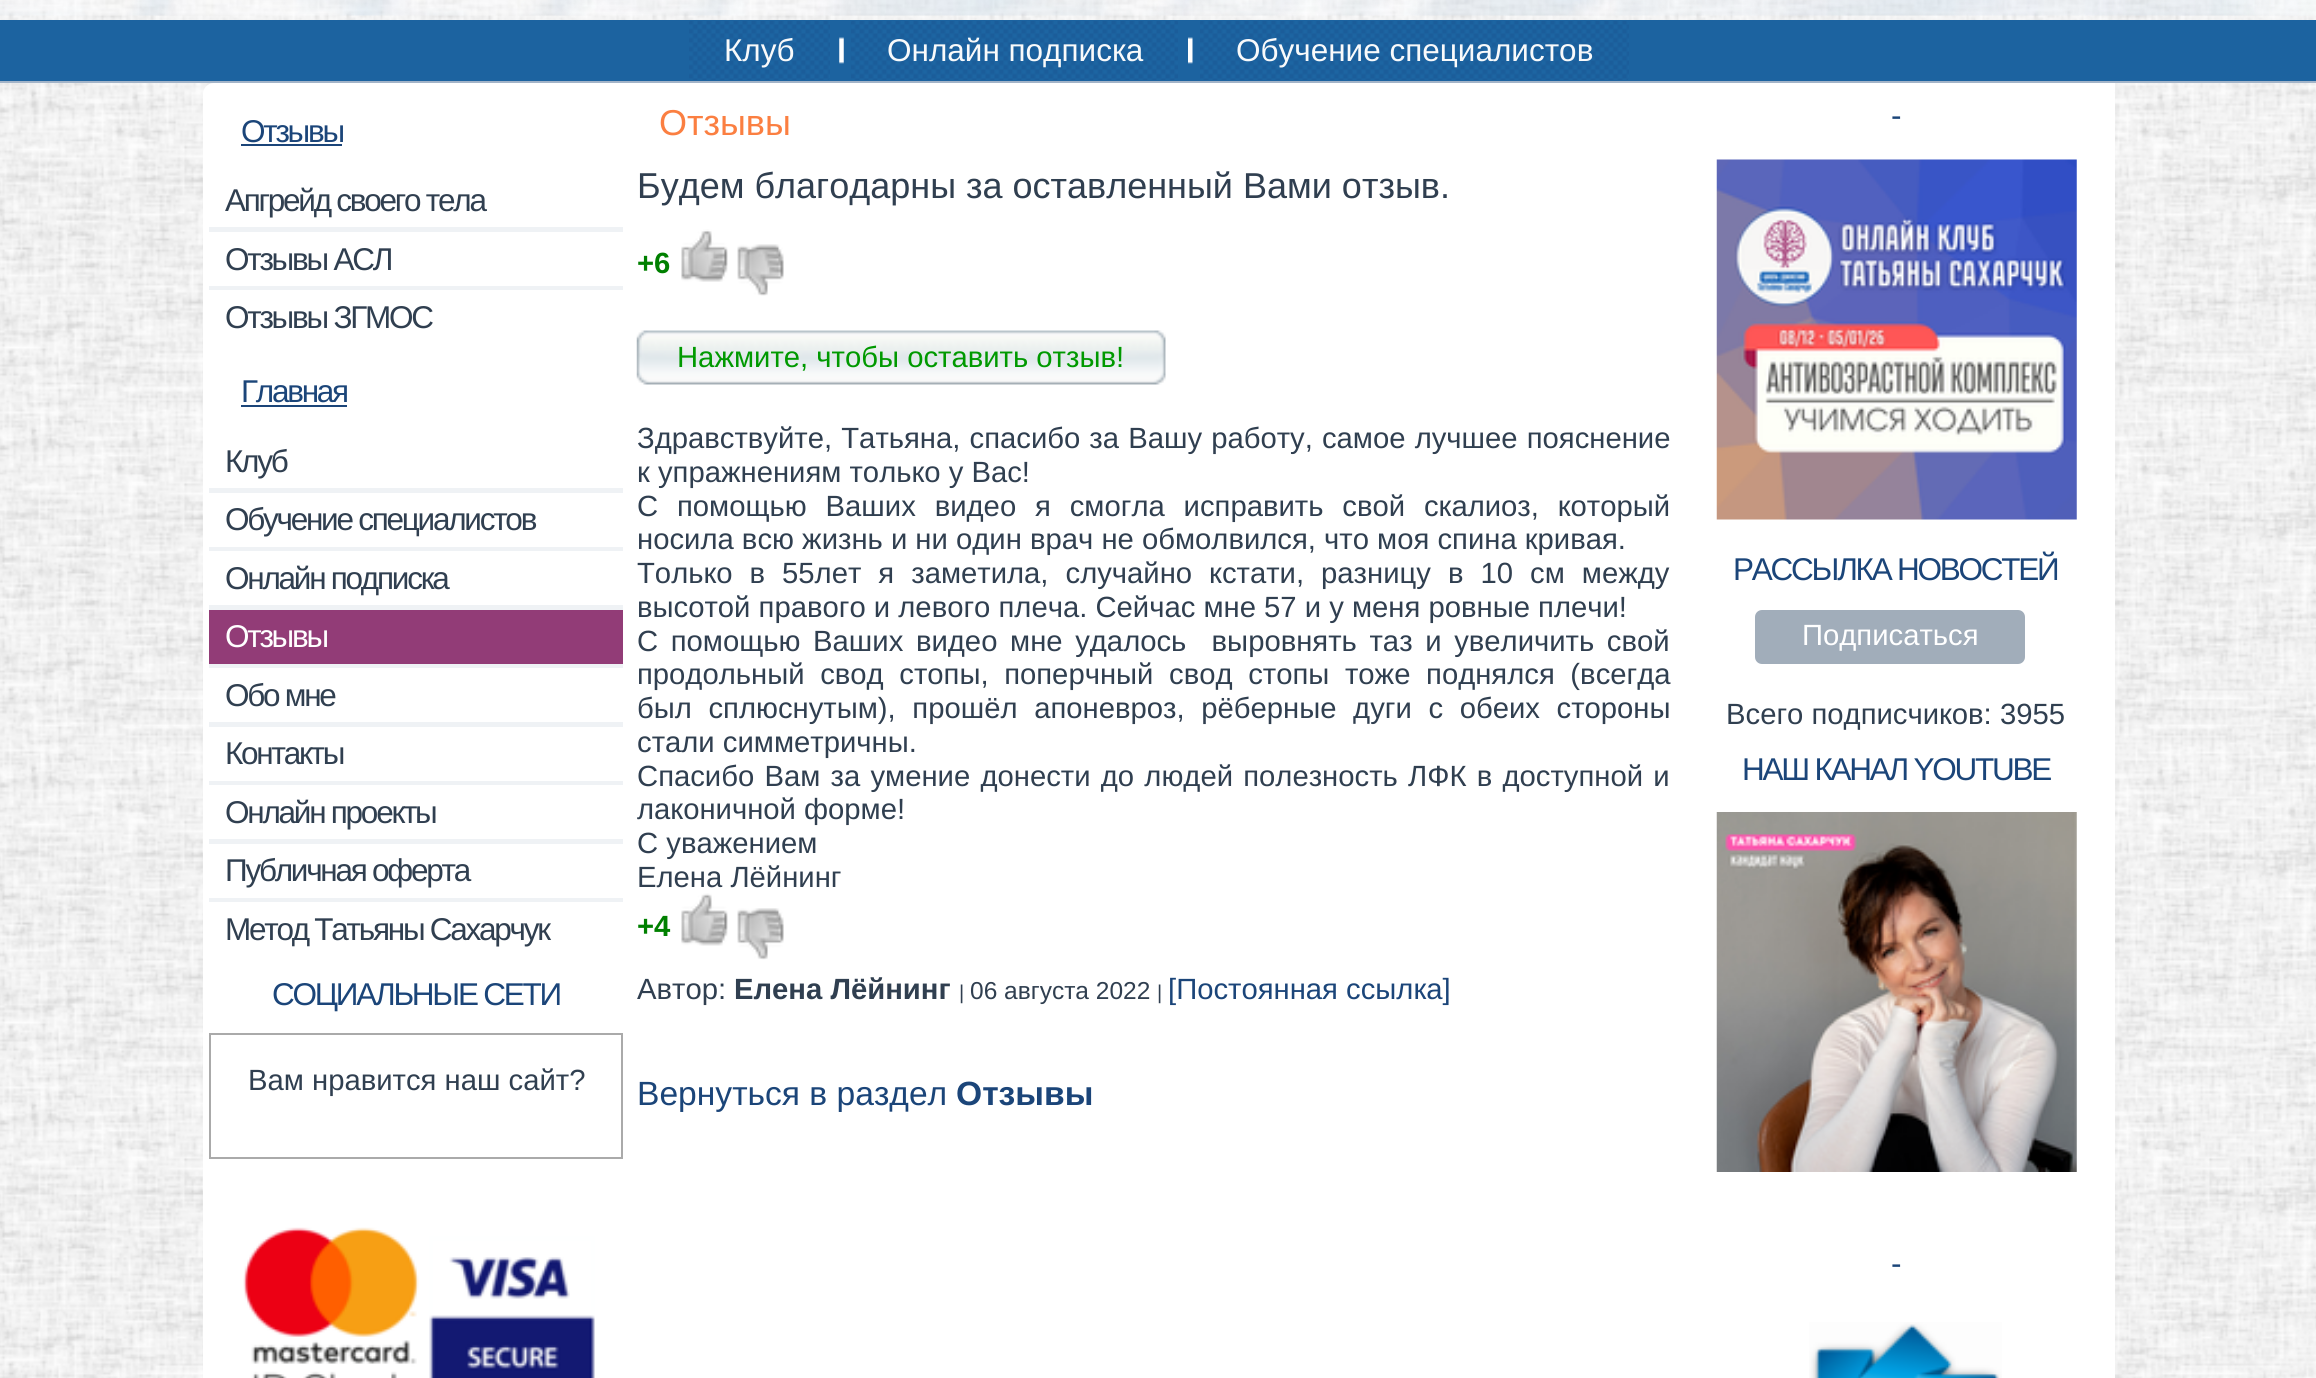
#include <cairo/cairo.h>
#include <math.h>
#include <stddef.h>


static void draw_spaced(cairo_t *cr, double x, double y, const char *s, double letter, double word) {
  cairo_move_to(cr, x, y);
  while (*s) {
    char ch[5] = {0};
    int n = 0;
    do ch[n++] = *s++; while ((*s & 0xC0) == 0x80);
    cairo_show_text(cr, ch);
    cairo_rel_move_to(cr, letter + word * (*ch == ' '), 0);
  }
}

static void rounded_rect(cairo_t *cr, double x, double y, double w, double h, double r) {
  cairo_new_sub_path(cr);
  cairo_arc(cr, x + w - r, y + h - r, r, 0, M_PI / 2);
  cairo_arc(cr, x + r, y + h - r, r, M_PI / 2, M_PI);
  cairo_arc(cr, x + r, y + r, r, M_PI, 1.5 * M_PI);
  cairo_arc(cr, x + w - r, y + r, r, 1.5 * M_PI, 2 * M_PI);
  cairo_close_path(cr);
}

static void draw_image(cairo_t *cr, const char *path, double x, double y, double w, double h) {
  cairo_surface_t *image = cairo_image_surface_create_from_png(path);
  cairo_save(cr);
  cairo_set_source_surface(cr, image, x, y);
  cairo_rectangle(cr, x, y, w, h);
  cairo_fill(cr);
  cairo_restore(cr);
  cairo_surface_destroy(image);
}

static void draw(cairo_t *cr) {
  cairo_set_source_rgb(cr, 1, 1, 1);
  cairo_paint(cr);
  draw_image(cr, "images/1.png", 0, 0, 2316, 1378);
  draw_image(cr, "images/2.png", 0, 0, 2316, 16);
  cairo_set_source_rgb(cr, 28 / 255.0, 99 / 255.0, 160 / 255.0);
  cairo_rectangle(cr, 0, 20, 2316, 61);
  cairo_fill(cr);
  cairo_set_source_rgb(cr, 163 / 255.0, 180 / 255.0, 200 / 255.0);
  cairo_rectangle(cr, 0, 81, 2316, 2);
  cairo_fill(cr);
  draw_image(cr, "images/3.png", 689, 21, 141, 59);
  draw_image(cr, "images/4.png", 839, 37, 5, 27);
  draw_image(cr, "images/5.png", 851, 21, 327, 59);
  draw_image(cr, "images/6.png", 1188, 37, 5, 27);
  draw_image(cr, "images/7.png", 1200, 21, 429, 59);
  cairo_set_source_rgb(cr, 1, 1, 1);
  rounded_rect(cr, 203, 83, 1912, 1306, 11);
  cairo_fill(cr);
  cairo_set_source_rgb(cr, 27 / 255.0, 69 / 255.0, 121 / 255.0);
  cairo_rectangle(cr, 241, 144, 101, 2);
  cairo_fill(cr);
  cairo_set_source_rgb(cr, 239 / 255.0, 242 / 255.0, 245 / 255.0);
  cairo_rectangle(cr, 209, 227, 414, 63);
  cairo_fill(cr);
  cairo_set_source_rgb(cr, 1, 1, 1);
  cairo_rectangle(cr, 209, 232, 414, 54);
  cairo_fill(cr);
  cairo_set_source_rgb(cr, 27 / 255.0, 69 / 255.0, 121 / 255.0);
  cairo_rectangle(cr, 241, 405, 106, 2);
  cairo_fill(cr);
  cairo_set_source_rgb(cr, 239 / 255.0, 242 / 255.0, 245 / 255.0);
  cairo_rectangle(cr, 209, 488, 414, 414);
  cairo_fill(cr);
  cairo_set_source_rgb(cr, 1, 1, 1);
  cairo_rectangle(cr, 209, 493, 414, 54);
  cairo_fill(cr);
  cairo_rectangle(cr, 209, 551, 414, 54);
  cairo_fill(cr);
  cairo_set_source_rgb(cr, 146 / 255.0, 60 / 255.0, 119 / 255.0);
  cairo_rectangle(cr, 209, 610, 414, 54);
  cairo_fill(cr);
  cairo_set_source_rgb(cr, 1, 1, 1);
  cairo_rectangle(cr, 209, 668, 414, 54);
  cairo_fill(cr);
  cairo_rectangle(cr, 209, 727, 414, 54);
  cairo_fill(cr);
  cairo_rectangle(cr, 209, 785, 414, 54);
  cairo_fill(cr);
  cairo_rectangle(cr, 209, 844, 414, 54);
  cairo_fill(cr);
  cairo_rectangle(cr, 210, 1034, 412, 124);
  cairo_set_source_rgb(cr, 170 / 255.0, 170 / 255.0, 170 / 255.0);
  cairo_stroke(cr);
  draw_image(cr, "images/8.png", 243, 1227, 352, 151);
  draw_image(cr, "images/9.png", 681, 229, 47, 53);
  draw_image(cr, "images/10.png", 737, 244, 47, 52);
  draw_image(cr, "images/11.png", 1125, 330, 41, 55);
  draw_image(cr, "images/12.png", 636, 330, 489, 55);
  draw_image(cr, "images/13.png", 681, 893, 47, 53);
  draw_image(cr, "images/14.png", 737, 908, 47, 52);
  cairo_set_source_rgb(cr, 1, 1, 1);
  cairo_rectangle(cr, 2105, 83, 10, 9);
  cairo_fill(cr);
  draw_image(cr, "images/15.png", 1716, 159, 361, 361);
  cairo_set_source_rgb(cr, 161 / 255.0, 173 / 255.0, 186 / 255.0);
  rounded_rect(cr, 1755, 610, 270, 54, 7);
  cairo_fill(cr);
  draw_image(cr, "images/16.png", 1716, 812, 361, 360);
  draw_image(cr, "images/17.png", 1809, 1322, 193, 56);
  cairo_select_font_face(cr, "Liberation Sans", CAIRO_FONT_SLANT_NORMAL, CAIRO_FONT_WEIGHT_NORMAL);
  cairo_set_font_size(cr, 31.5);
  cairo_set_source_rgb(cr, 249 / 255.0, 250 / 255.0, 251 / 255.0);
  cairo_move_to(cr, 724, 61);
  cairo_show_text(cr, "Клуб");
  cairo_move_to(cr, 887, 61);
  cairo_show_text(cr, "Онлайн подписка");
  cairo_move_to(cr, 1236, 61);
  cairo_show_text(cr, "Обучение специалистов");
  cairo_set_source_rgb(cr, 27 / 255.0, 69 / 255.0, 121 / 255.0);
  draw_spaced(cr, 241, 142, "Отзывы", -2.25, 0);
  cairo_set_source_rgb(cr, 48 / 255.0, 63 / 255.0, 80 / 255.0);
  draw_spaced(cr, 225, 211, "Апгрейд своего тела", -2.25, 0);
  draw_spaced(cr, 225, 270, "Отзывы АСЛ", -2.25, 0);
  draw_spaced(cr, 225, 328, "Отзывы ЗГМОС", -2.25, 0);
  cairo_set_source_rgb(cr, 27 / 255.0, 69 / 255.0, 121 / 255.0);
  draw_spaced(cr, 241, 402, "Главная", -2.25, 0);
  cairo_set_source_rgb(cr, 48 / 255.0, 63 / 255.0, 80 / 255.0);
  draw_spaced(cr, 225, 472, "Клуб", -2.25, 0);
  draw_spaced(cr, 225, 530, "Обучение специалистов", -2.25, 0);
  draw_spaced(cr, 225, 589, "Онлайн подписка", -2.25, 0);
  cairo_set_source_rgb(cr, 1, 1, 1);
  draw_spaced(cr, 225, 647, "Отзывы", -2.25, 0);
  cairo_set_source_rgb(cr, 48 / 255.0, 63 / 255.0, 80 / 255.0);
  draw_spaced(cr, 225, 706, "Обо мне", -2.25, 0);
  draw_spaced(cr, 225, 764, "Контакты", -2.25, 0);
  draw_spaced(cr, 225, 823, "Онлайн проекты", -2.25, 0);
  draw_spaced(cr, 225, 881, "Публичная оферта", -2.25, 0);
  draw_spaced(cr, 225, 940, "Метод Татьяны Сахарчук", -2.25, 0);
  cairo_set_source_rgb(cr, 27 / 255.0, 69 / 255.0, 121 / 255.0);
  draw_spaced(cr, 272, 1005, "СОЦИАЛЬНЫЕ СЕТИ", -2.25, 0);
  cairo_set_font_size(cr, 29.25);
  cairo_set_source_rgb(cr, 48 / 255.0, 63 / 255.0, 80 / 255.0);
  cairo_move_to(cr, 248, 1090);
  cairo_show_text(cr, "Вам нравится наш сайт?");
  cairo_set_font_size(cr, 36);
  cairo_set_source_rgb(cr, 251 / 255.0, 127 / 255.0, 65 / 255.0);
  cairo_move_to(cr, 659, 135);
  cairo_show_text(cr, "Отзывы");
  cairo_set_source_rgb(cr, 48 / 255.0, 63 / 255.0, 80 / 255.0);
  cairo_move_to(cr, 637, 198);
  cairo_show_text(cr, "Будем благодарны за оставленный Вами отзыв.");
  cairo_select_font_face(cr, "Liberation Sans", CAIRO_FONT_SLANT_NORMAL, CAIRO_FONT_WEIGHT_BOLD);
  cairo_set_font_size(cr, 29.25);
  cairo_set_source_rgb(cr, 0, 128 / 255.0, 0);
  cairo_move_to(cr, 637, 273);
  cairo_show_text(cr, "+6");
  cairo_select_font_face(cr, "Liberation Sans", CAIRO_FONT_SLANT_NORMAL, CAIRO_FONT_WEIGHT_NORMAL);
  cairo_set_source_rgb(cr, 0, 153 / 255.0, 0);
  cairo_move_to(cr, 677, 367);
  cairo_show_text(cr, "Нажмите, чтобы оставить отзыв!");
  cairo_set_source_rgb(cr, 48 / 255.0, 63 / 255.0, 80 / 255.0);
  draw_spaced(cr, 637, 448, "Здравствуйте, Татьяна, спасибо за Вашу работу, самое лучшее пояснение", 0, 1);
  cairo_move_to(cr, 637, 482);
  cairo_show_text(cr, "к упражнениям только у Вас!");
  draw_spaced(cr, 637, 516, "С помощью Ваших видео я смогла исправить свой скалиоз, который", 0, 10.75);
  cairo_move_to(cr, 637, 549);
  cairo_show_text(cr, "носила всю жизнь и ни один врач не обмолвился, что моя спина кривая.");
  draw_spaced(cr, 637, 583, "Только в 55лет я заметила, случайно кстати, разницу в 10 см между", 0, 8.9);
  cairo_move_to(cr, 637, 617);
  cairo_show_text(cr, "высотой правого и левого плеча. Сейчас мне 57 и у меня ровные плечи!");
  draw_spaced(cr, 637, 651, "С помощью Ваших видео мне удалось  выровнять таз и увеличить свой", 0, 4.5);
  draw_spaced(cr, 637, 684, "продольный свод стопы, поперчный свод стопы тоже поднялся (всегда", 0, 7.5);
  draw_spaced(cr, 637, 718, "был сплюснутым), прошёл апоневроз, рёберные дуги с обеих стороны", 0, 8.5);
  cairo_move_to(cr, 637, 752);
  cairo_show_text(cr, "стали симметричны.");
  draw_spaced(cr, 637, 786, "Спасибо Вам за умение донести до людей полезность ЛФК в доступной и", 0, 2.1);
  cairo_move_to(cr, 637, 819);
  cairo_show_text(cr, "лаконичной форме!");
  cairo_move_to(cr, 637, 853);
  cairo_show_text(cr, "С уважением");
  cairo_move_to(cr, 637, 887);
  cairo_show_text(cr, "Елена Лёйнинг");
  cairo_select_font_face(cr, "Liberation Sans", CAIRO_FONT_SLANT_NORMAL, CAIRO_FONT_WEIGHT_BOLD);
  cairo_set_source_rgb(cr, 0, 128 / 255.0, 0);
  cairo_move_to(cr, 637, 936);
  cairo_show_text(cr, "+4");
  cairo_select_font_face(cr, "Liberation Sans", CAIRO_FONT_SLANT_NORMAL, CAIRO_FONT_WEIGHT_NORMAL);
  cairo_set_source_rgb(cr, 48 / 255.0, 63 / 255.0, 80 / 255.0);
  cairo_move_to(cr, 637, 999);
  cairo_show_text(cr, "Автор:");
  cairo_select_font_face(cr, "Liberation Sans", CAIRO_FONT_SLANT_NORMAL, CAIRO_FONT_WEIGHT_BOLD);
  cairo_move_to(cr, 734, 999);
  cairo_show_text(cr, "Елена Лёйнинг");
  cairo_select_font_face(cr, "Liberation Sans", CAIRO_FONT_SLANT_NORMAL, CAIRO_FONT_WEIGHT_NORMAL);
  cairo_set_font_size(cr, 20);
  cairo_move_to(cr, 959, 999);
  cairo_show_text(cr, "|");
  cairo_set_font_size(cr, 24.5);
  cairo_move_to(cr, 970, 999);
  cairo_show_text(cr, "06 августа 2022");
  cairo_set_font_size(cr, 20);
  cairo_move_to(cr, 1157, 999);
  cairo_show_text(cr, "|");
  cairo_set_font_size(cr, 29.25);
  cairo_set_source_rgb(cr, 27 / 255.0, 69 / 255.0, 121 / 255.0);
  cairo_move_to(cr, 1168, 999);
  cairo_show_text(cr, "[Постоянная ссылка]");
  cairo_set_font_size(cr, 33.6);
  cairo_move_to(cr, 637, 1105);
  cairo_show_text(cr, "Вернуться в раздел");
  cairo_select_font_face(cr, "Liberation Sans", CAIRO_FONT_SLANT_NORMAL, CAIRO_FONT_WEIGHT_BOLD);
  cairo_move_to(cr, 956, 1105);
  cairo_show_text(cr, "Отзывы");
  cairo_select_font_face(cr, "Liberation Sans", CAIRO_FONT_SLANT_NORMAL, CAIRO_FONT_WEIGHT_NORMAL);
  cairo_set_font_size(cr, 31.5);
  draw_spaced(cr, 1891, 126, "-", -2.25, 0);
  draw_spaced(cr, 1733, 580, "РАССЫЛКА НОВОСТЕЙ", -2.25, 0);
  cairo_set_font_size(cr, 29.25);
  cairo_set_source_rgb(cr, 1, 1, 1);
  cairo_move_to(cr, 1802, 645);
  cairo_show_text(cr, "Подписаться");
  cairo_set_source_rgb(cr, 48 / 255.0, 63 / 255.0, 80 / 255.0);
  cairo_move_to(cr, 1726, 724);
  cairo_show_text(cr, "Всего подписчиков: 3955");
  cairo_set_font_size(cr, 31.5);
  cairo_set_source_rgb(cr, 27 / 255.0, 69 / 255.0, 121 / 255.0);
  draw_spaced(cr, 1742, 780, "НАШ КАНАЛ YOUTUBE", -2.25, 0);
  draw_spaced(cr, 1891, 1274, "-", -2.25, 0);
}

int main(void) {
  cairo_surface_t *surface = cairo_image_surface_create(CAIRO_FORMAT_RGB24, 2316, 1378);
  cairo_t *cr = cairo_create(surface);
  cairo_font_options_t *options = cairo_font_options_create();
  cairo_font_options_set_hint_metrics(options, CAIRO_HINT_METRICS_OFF);
  cairo_font_options_set_hint_style(options, CAIRO_HINT_STYLE_NONE);
  cairo_set_font_options(cr, options);
  cairo_set_miter_limit(cr, 4);
  draw(cr);
  cairo_surface_write_to_png(surface, "out.png");
  cairo_font_options_destroy(options);
  cairo_destroy(cr);
  cairo_surface_destroy(surface);
  return 0;
}
